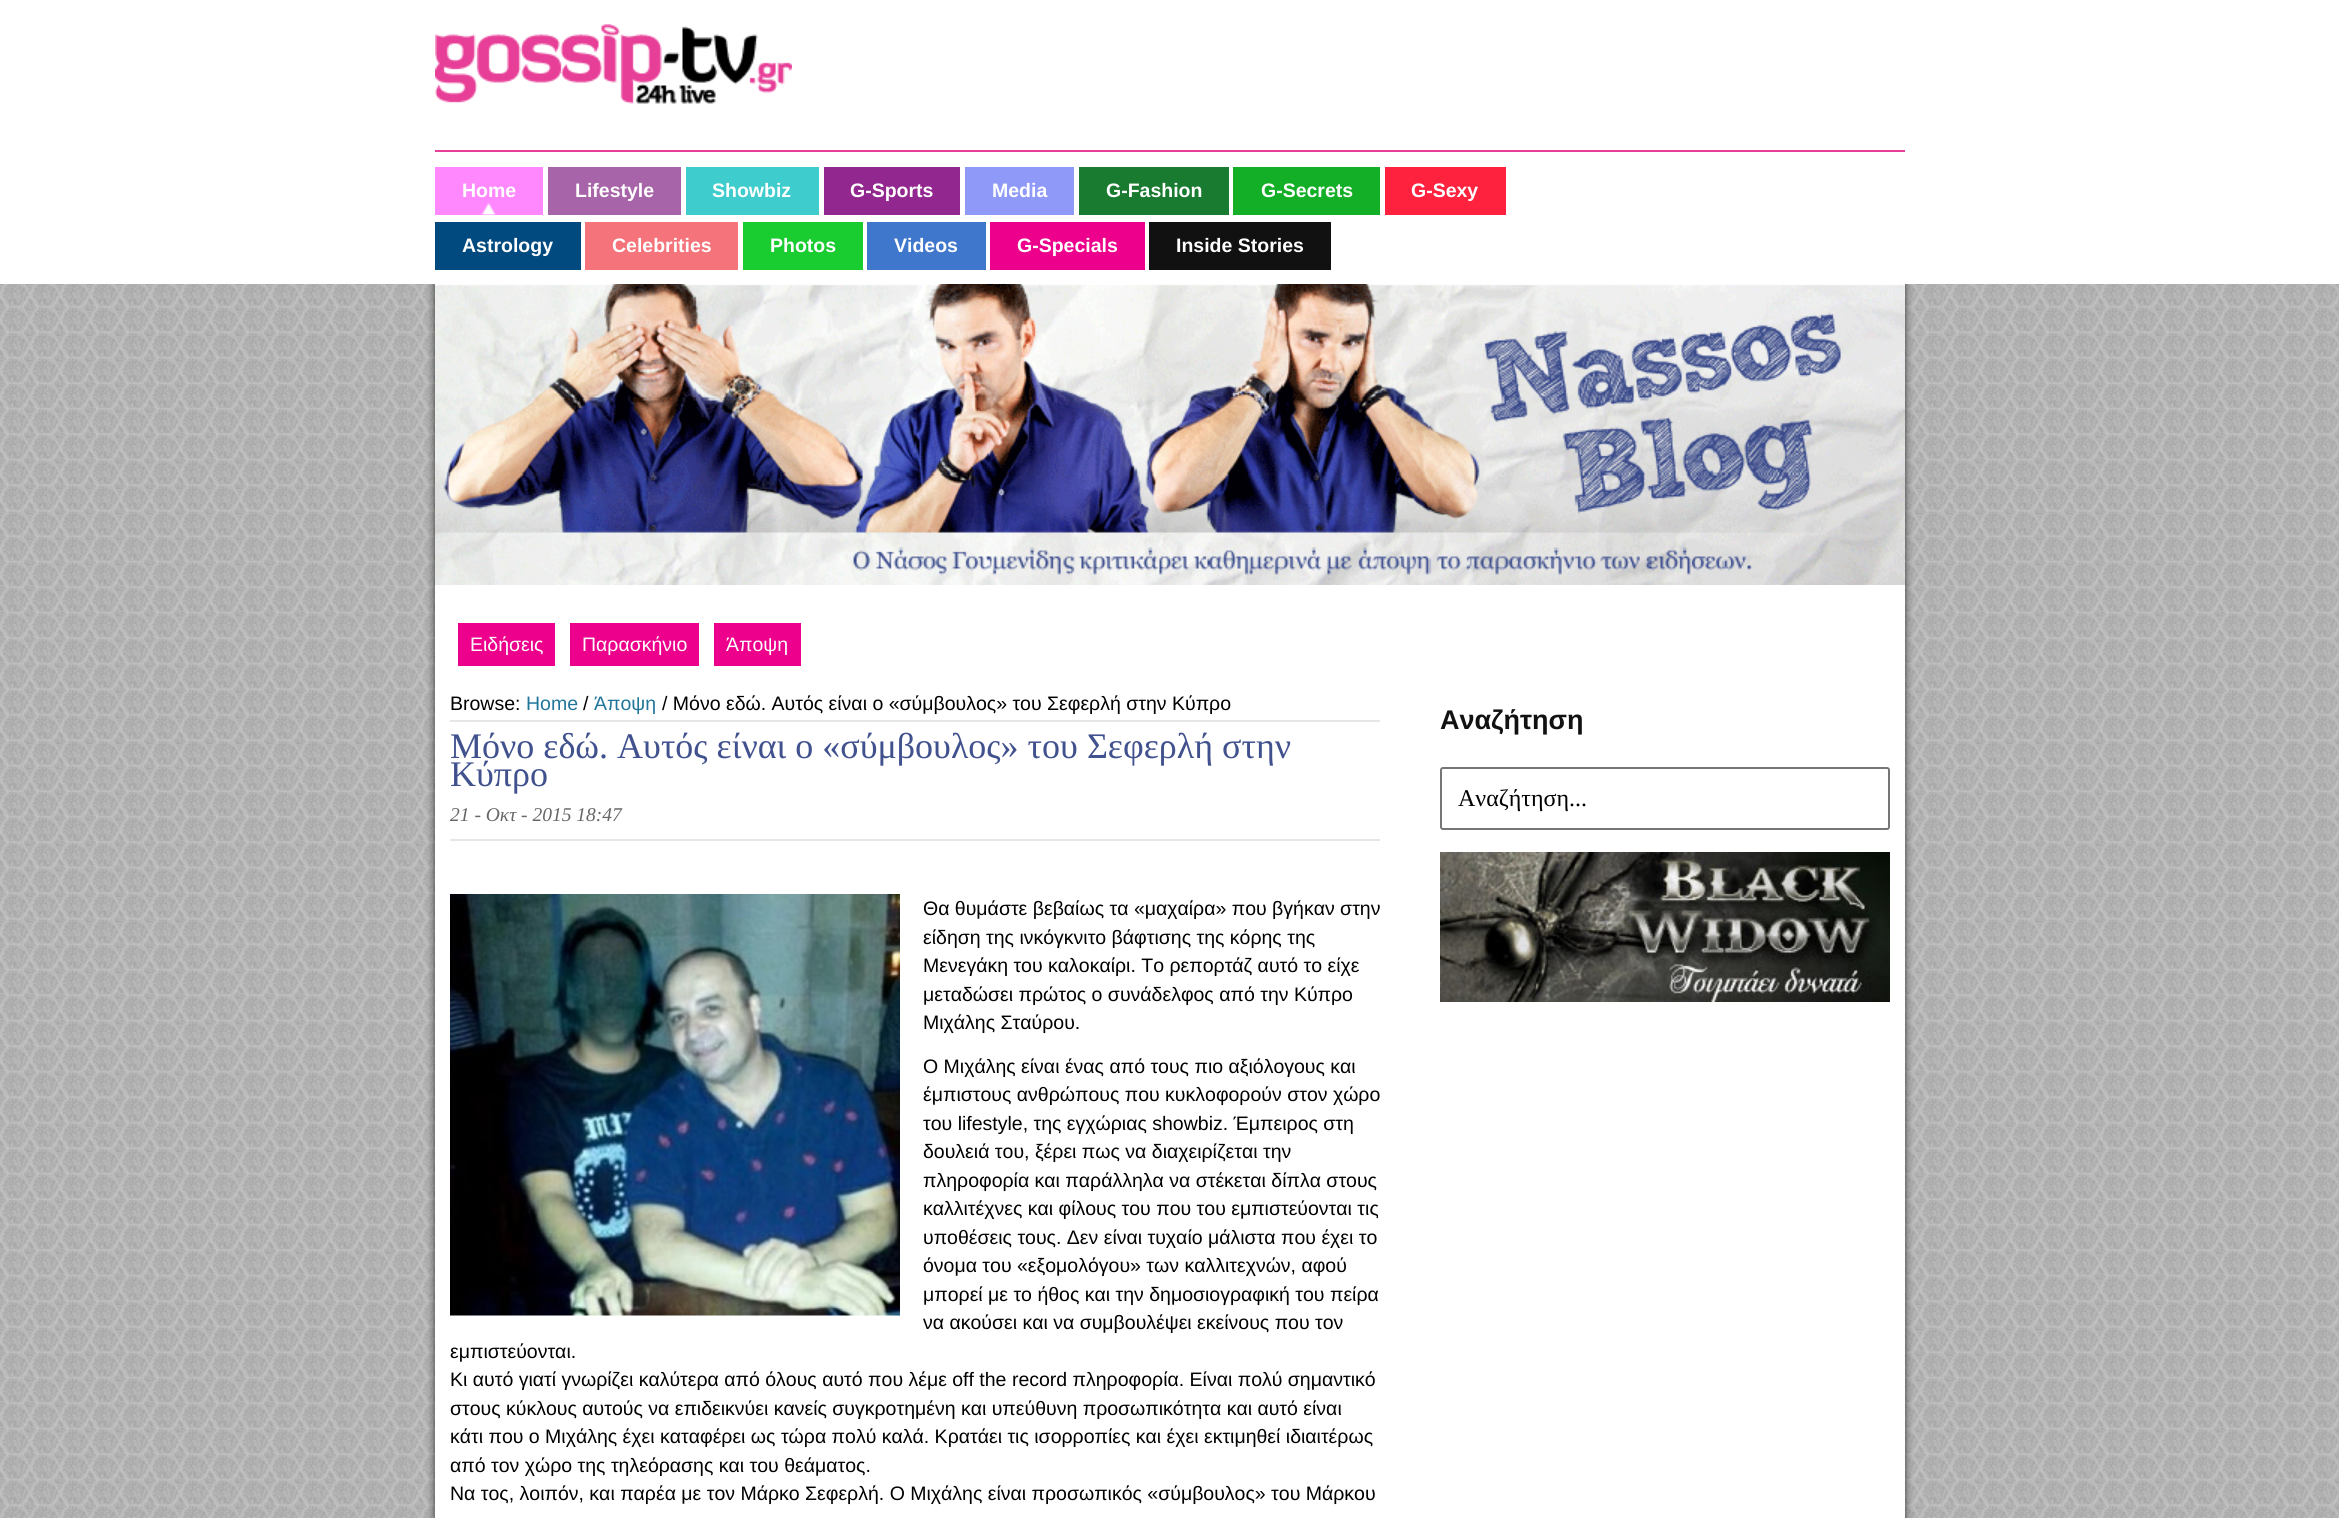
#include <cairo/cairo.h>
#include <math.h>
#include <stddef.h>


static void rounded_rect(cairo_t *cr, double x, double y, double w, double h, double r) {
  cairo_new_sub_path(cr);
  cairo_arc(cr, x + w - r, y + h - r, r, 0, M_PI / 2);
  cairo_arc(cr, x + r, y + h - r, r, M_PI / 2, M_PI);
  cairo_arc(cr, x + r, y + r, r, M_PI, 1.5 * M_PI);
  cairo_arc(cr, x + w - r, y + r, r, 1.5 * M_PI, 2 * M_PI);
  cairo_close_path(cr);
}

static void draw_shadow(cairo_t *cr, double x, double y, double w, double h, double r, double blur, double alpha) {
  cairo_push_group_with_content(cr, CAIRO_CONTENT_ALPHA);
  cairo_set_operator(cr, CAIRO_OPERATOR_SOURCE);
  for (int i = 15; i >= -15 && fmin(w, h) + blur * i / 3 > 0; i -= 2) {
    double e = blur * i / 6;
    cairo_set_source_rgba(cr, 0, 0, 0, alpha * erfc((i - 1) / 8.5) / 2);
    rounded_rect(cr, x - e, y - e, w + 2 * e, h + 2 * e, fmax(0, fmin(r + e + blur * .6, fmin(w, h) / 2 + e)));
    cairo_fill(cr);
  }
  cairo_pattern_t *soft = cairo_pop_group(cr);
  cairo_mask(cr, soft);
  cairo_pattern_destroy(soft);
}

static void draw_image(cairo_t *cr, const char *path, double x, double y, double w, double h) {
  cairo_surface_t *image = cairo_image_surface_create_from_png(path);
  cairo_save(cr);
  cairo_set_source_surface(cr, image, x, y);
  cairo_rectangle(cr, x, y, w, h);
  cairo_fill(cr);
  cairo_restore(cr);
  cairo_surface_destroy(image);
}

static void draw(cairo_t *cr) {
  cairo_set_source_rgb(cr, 1, 1, 1);
  cairo_paint(cr);
  draw_image(cr, "images/1.png", 0, 284, 2339, 1234);
  cairo_set_source_rgb(cr, 51 / 255.0, 51 / 255.0, 51 / 255.0);
  draw_shadow(cr, 435, 284, 1470, 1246, 0, 4, 1);
  cairo_set_source_rgb(cr, 1, 1, 1);
  cairo_rectangle(cr, 427, 275, 1486, 9);
  cairo_fill(cr);
  cairo_set_source_rgb(cr, 231 / 255.0, 62 / 255.0, 151 / 255.0);
  cairo_rectangle(cr, 435, 150, 1470, 2);
  cairo_fill(cr);
  draw_image(cr, "images/2.png", 435, 24, 357, 80);
  cairo_set_source_rgb(cr, 1, 136 / 255.0, 1);
  cairo_rectangle(cr, 435, 167, 108, 48);
  cairo_fill(cr);
  draw_image(cr, "images/3.png", 481, 202, 15, 13);
  cairo_set_source_rgb(cr, 168 / 255.0, 100 / 255.0, 168 / 255.0);
  cairo_rectangle(cr, 548, 167, 133, 48);
  cairo_fill(cr);
  cairo_set_source_rgb(cr, 63 / 255.0, 204 / 255.0, 205 / 255.0);
  cairo_rectangle(cr, 686, 167, 133, 48);
  cairo_fill(cr);
  cairo_set_source_rgb(cr, 146 / 255.0, 39 / 255.0, 143 / 255.0);
  cairo_rectangle(cr, 824, 167, 136, 48);
  cairo_fill(cr);
  cairo_set_source_rgb(cr, 143 / 255.0, 153 / 255.0, 248 / 255.0);
  cairo_rectangle(cr, 965, 167, 109, 48);
  cairo_fill(cr);
  cairo_set_source_rgb(cr, 25 / 255.0, 123 / 255.0, 48 / 255.0);
  cairo_rectangle(cr, 1079, 167, 150, 48);
  cairo_fill(cr);
  cairo_set_source_rgb(cr, 19 / 255.0, 175 / 255.0, 39 / 255.0);
  cairo_rectangle(cr, 1233, 167, 147, 48);
  cairo_fill(cr);
  cairo_set_source_rgb(cr, 1, 34 / 255.0, 63 / 255.0);
  cairo_rectangle(cr, 1385, 167, 121, 48);
  cairo_fill(cr);
  cairo_set_source_rgb(cr, 0, 74 / 255.0, 128 / 255.0);
  cairo_rectangle(cr, 435, 222, 146, 48);
  cairo_fill(cr);
  cairo_set_source_rgb(cr, 245 / 255.0, 115 / 255.0, 122 / 255.0);
  cairo_rectangle(cr, 585, 222, 153, 48);
  cairo_fill(cr);
  cairo_set_source_rgb(cr, 25 / 255.0, 204 / 255.0, 48 / 255.0);
  cairo_rectangle(cr, 743, 222, 120, 48);
  cairo_fill(cr);
  cairo_set_source_rgb(cr, 63 / 255.0, 119 / 255.0, 205 / 255.0);
  cairo_rectangle(cr, 867, 222, 119, 48);
  cairo_fill(cr);
  cairo_set_source_rgb(cr, 236 / 255.0, 0, 140 / 255.0);
  cairo_rectangle(cr, 990, 222, 155, 48);
  cairo_fill(cr);
  cairo_set_source_rgb(cr, 17 / 255.0, 17 / 255.0, 17 / 255.0);
  cairo_rectangle(cr, 1149, 222, 182, 48);
  cairo_fill(cr);
  cairo_set_source_rgb(cr, 1, 1, 1);
  cairo_rectangle(cr, 435, 284, 1470, 1234);
  cairo_fill(cr);
  draw_image(cr, "images/4.png", 435, 284, 1470, 301);
  cairo_set_source_rgb(cr, 236 / 255.0, 0, 140 / 255.0);
  cairo_rectangle(cr, 458, 623, 97, 43);
  cairo_fill(cr);
  cairo_rectangle(cr, 570, 623, 129, 43);
  cairo_fill(cr);
  cairo_rectangle(cr, 714, 623, 87, 43);
  cairo_fill(cr);
  cairo_set_source_rgb(cr, 230 / 255.0, 230 / 255.0, 230 / 255.0);
  cairo_rectangle(cr, 450, 720, 930, 2);
  cairo_fill(cr);
  cairo_rectangle(cr, 450, 839, 930, 2);
  cairo_fill(cr);
  draw_image(cr, "images/5.png", 450, 894, 450, 422);
  rounded_rect(cr, 1441, 768, 448, 61, 2);
  cairo_set_source_rgb(cr, 118 / 255.0, 118 / 255.0, 118 / 255.0);
  cairo_stroke(cr);
  draw_image(cr, "images/6.png", 1440, 852, 450, 150);
  cairo_select_font_face(cr, "Liberation Sans", CAIRO_FONT_SLANT_NORMAL, CAIRO_FONT_WEIGHT_BOLD);
  cairo_set_font_size(cr, 19.5);
  cairo_set_source_rgb(cr, 1, 1, 1);
  cairo_move_to(cr, 462, 197);
  cairo_show_text(cr, "Home");
  cairo_move_to(cr, 575, 197);
  cairo_show_text(cr, "Lifestyle");
  cairo_move_to(cr, 712, 197);
  cairo_show_text(cr, "Showbiz");
  cairo_move_to(cr, 850, 197);
  cairo_show_text(cr, "G-Sports");
  cairo_move_to(cr, 992, 197);
  cairo_show_text(cr, "Media");
  cairo_move_to(cr, 1106, 197);
  cairo_show_text(cr, "G-Fashion");
  cairo_move_to(cr, 1261, 197);
  cairo_show_text(cr, "G-Secrets");
  cairo_move_to(cr, 1411, 197);
  cairo_show_text(cr, "G-Sexy");
  cairo_move_to(cr, 462, 252);
  cairo_show_text(cr, "Astrology");
  cairo_move_to(cr, 612, 252);
  cairo_show_text(cr, "Celebrities");
  cairo_move_to(cr, 770, 252);
  cairo_show_text(cr, "Photos");
  cairo_move_to(cr, 894, 252);
  cairo_show_text(cr, "Videos");
  cairo_move_to(cr, 1017, 252);
  cairo_show_text(cr, "G-Specials");
  cairo_move_to(cr, 1176, 252);
  cairo_show_text(cr, "Inside Stories");
  cairo_select_font_face(cr, "Liberation Sans", CAIRO_FONT_SLANT_NORMAL, CAIRO_FONT_WEIGHT_NORMAL);
  cairo_move_to(cr, 470, 651);
  cairo_show_text(cr, "Ειδήσεις");
  cairo_move_to(cr, 582, 651);
  cairo_show_text(cr, "Παρασκήνιο");
  cairo_move_to(cr, 726, 651);
  cairo_show_text(cr, "Άποψη");
  cairo_set_source_rgb(cr, 0, 0, 0);
  cairo_move_to(cr, 450, 710);
  cairo_show_text(cr, "Browse:");
  cairo_set_source_rgb(cr, 33 / 255.0, 117 / 255.0, 155 / 255.0);
  cairo_move_to(cr, 526, 710);
  cairo_show_text(cr, "Home");
  cairo_set_source_rgb(cr, 0, 0, 0);
  cairo_move_to(cr, 583, 710);
  cairo_show_text(cr, "/");
  cairo_set_source_rgb(cr, 33 / 255.0, 117 / 255.0, 155 / 255.0);
  cairo_move_to(cr, 594, 710);
  cairo_show_text(cr, "Άποψη");
  cairo_set_source_rgb(cr, 0, 0, 0);
  cairo_move_to(cr, 662, 710);
  cairo_show_text(cr, "/ Μόνο εδώ. Αυτός είναι ο «σύμβουλος» του Σεφερλή στην Κύπρο");
  cairo_select_font_face(cr, "Liberation Serif", CAIRO_FONT_SLANT_NORMAL, CAIRO_FONT_WEIGHT_NORMAL);
  cairo_set_font_size(cr, 36);
  cairo_set_source_rgb(cr, 64 / 255.0, 81 / 255.0, 142 / 255.0);
  cairo_move_to(cr, 450, 758);
  cairo_show_text(cr, "Μόνο εδώ. Αυτός είναι ο «σύμβουλος» του Σεφερλή στην");
  cairo_move_to(cr, 450, 786);
  cairo_show_text(cr, "Κύπρο");
  cairo_select_font_face(cr, "Liberation Serif", CAIRO_FONT_SLANT_ITALIC, CAIRO_FONT_WEIGHT_NORMAL);
  cairo_set_font_size(cr, 19.5);
  cairo_set_source_rgb(cr, 102 / 255.0, 102 / 255.0, 102 / 255.0);
  cairo_move_to(cr, 450, 821);
  cairo_show_text(cr, "21 - Οκτ - 2015 18:47");
  cairo_select_font_face(cr, "Liberation Sans", CAIRO_FONT_SLANT_NORMAL, CAIRO_FONT_WEIGHT_NORMAL);
  cairo_set_source_rgb(cr, 0, 0, 0);
  cairo_move_to(cr, 923, 915);
  cairo_show_text(cr, "Θα θυμάστε βεβαίως τα «μαχαίρα» που βγήκαν στην");
  cairo_move_to(cr, 923, 944);
  cairo_show_text(cr, "είδηση της ινκόγκνιτο βάφτισης της κόρης της");
  cairo_move_to(cr, 923, 972);
  cairo_show_text(cr, "Μενεγάκη του καλοκαίρι. Το ρεπορτάζ αυτό το είχε");
  cairo_move_to(cr, 923, 1001);
  cairo_show_text(cr, "μεταδώσει πρώτος ο συνάδελφος από την Κύπρο");
  cairo_move_to(cr, 923, 1029);
  cairo_show_text(cr, "Μιχάλης Σταύρου.");
  cairo_move_to(cr, 923, 1073);
  cairo_show_text(cr, "Ο Μιχάλης είναι ένας από τους πιο αξιόλογους και");
  cairo_move_to(cr, 923, 1101);
  cairo_show_text(cr, "έμπιστους ανθρώπους που κυκλοφορούν στον χώρο");
  cairo_move_to(cr, 923, 1130);
  cairo_show_text(cr, "του lifestyle, της εγχώριας showbiz. Έμπειρος στη");
  cairo_move_to(cr, 923, 1158);
  cairo_show_text(cr, "δουλειά του, ξέρει πως να διαχειρίζεται την");
  cairo_move_to(cr, 923, 1187);
  cairo_show_text(cr, "πληροφορία και παράλληλα να στέκεται δίπλα στους");
  cairo_move_to(cr, 923, 1215);
  cairo_show_text(cr, "καλλιτέχνες και φίλους του που του εμπιστεύονται τις");
  cairo_move_to(cr, 923, 1244);
  cairo_show_text(cr, "υποθέσεις τους. Δεν είναι τυχαίο μάλιστα που έχει το");
  cairo_move_to(cr, 923, 1272);
  cairo_show_text(cr, "όνομα του «εξομολόγου» των καλλιτεχνών, αφού");
  cairo_move_to(cr, 923, 1301);
  cairo_show_text(cr, "μπορεί με το ήθος και την δημοσιογραφική του πείρα");
  cairo_move_to(cr, 923, 1329);
  cairo_show_text(cr, "να ακούσει και να συμβουλέψει εκείνους που τον");
  cairo_move_to(cr, 450, 1358);
  cairo_show_text(cr, "εμπιστεύονται.");
  cairo_move_to(cr, 450, 1386);
  cairo_show_text(cr, "Κι αυτό γιατί γνωρίζει καλύτερα από όλους αυτό που λέμε off the record πληροφορία. Είναι πολύ σημαντικό");
  cairo_move_to(cr, 450, 1415);
  cairo_show_text(cr, "στους κύκλους αυτούς να επιδεικνύει κανείς συγκροτημένη και υπεύθυνη προσωπικότητα και αυτό είναι");
  cairo_move_to(cr, 450, 1443);
  cairo_show_text(cr, "κάτι που ο Μιχάλης έχει καταφέρει ως τώρα πολύ καλά. Κρατάει τις ισορροπίες και έχει εκτιμηθεί ιδιαιτέρως");
  cairo_move_to(cr, 450, 1472);
  cairo_show_text(cr, "από τον χώρο της τηλεόρασης και του θεάματος.");
  cairo_move_to(cr, 450, 1500);
  cairo_show_text(cr, "Να τος, λοιπόν, και παρέα με τον Μάρκο Σεφερλή. Ο Μιχάλης είναι προσωπικός «σύμβουλος» του Μάρκου");
  cairo_select_font_face(cr, "Liberation Sans", CAIRO_FONT_SLANT_NORMAL, CAIRO_FONT_WEIGHT_BOLD);
  cairo_set_font_size(cr, 27);
  cairo_set_source_rgb(cr, 17 / 255.0, 17 / 255.0, 17 / 255.0);
  cairo_move_to(cr, 1440, 729);
  cairo_show_text(cr, "Αναζήτηση");
  cairo_select_font_face(cr, "Liberation Serif", CAIRO_FONT_SLANT_NORMAL, CAIRO_FONT_WEIGHT_NORMAL);
  cairo_set_font_size(cr, 24);
  cairo_set_source_rgb(cr, 0, 0, 0);
  cairo_move_to(cr, 1458, 806);
  cairo_show_text(cr, "Αναζήτηση...");
}

int main(void) {
  cairo_surface_t *surface = cairo_image_surface_create(CAIRO_FORMAT_RGB24, 2339, 1518);
  cairo_t *cr = cairo_create(surface);
  cairo_font_options_t *options = cairo_font_options_create();
  cairo_font_options_set_hint_metrics(options, CAIRO_HINT_METRICS_OFF);
  cairo_font_options_set_hint_style(options, CAIRO_HINT_STYLE_NONE);
  cairo_set_font_options(cr, options);
  cairo_set_miter_limit(cr, 4);
  draw(cr);
  cairo_surface_write_to_png(surface, "out.png");
  cairo_font_options_destroy(options);
  cairo_destroy(cr);
  cairo_surface_destroy(surface);
  return 0;
}
